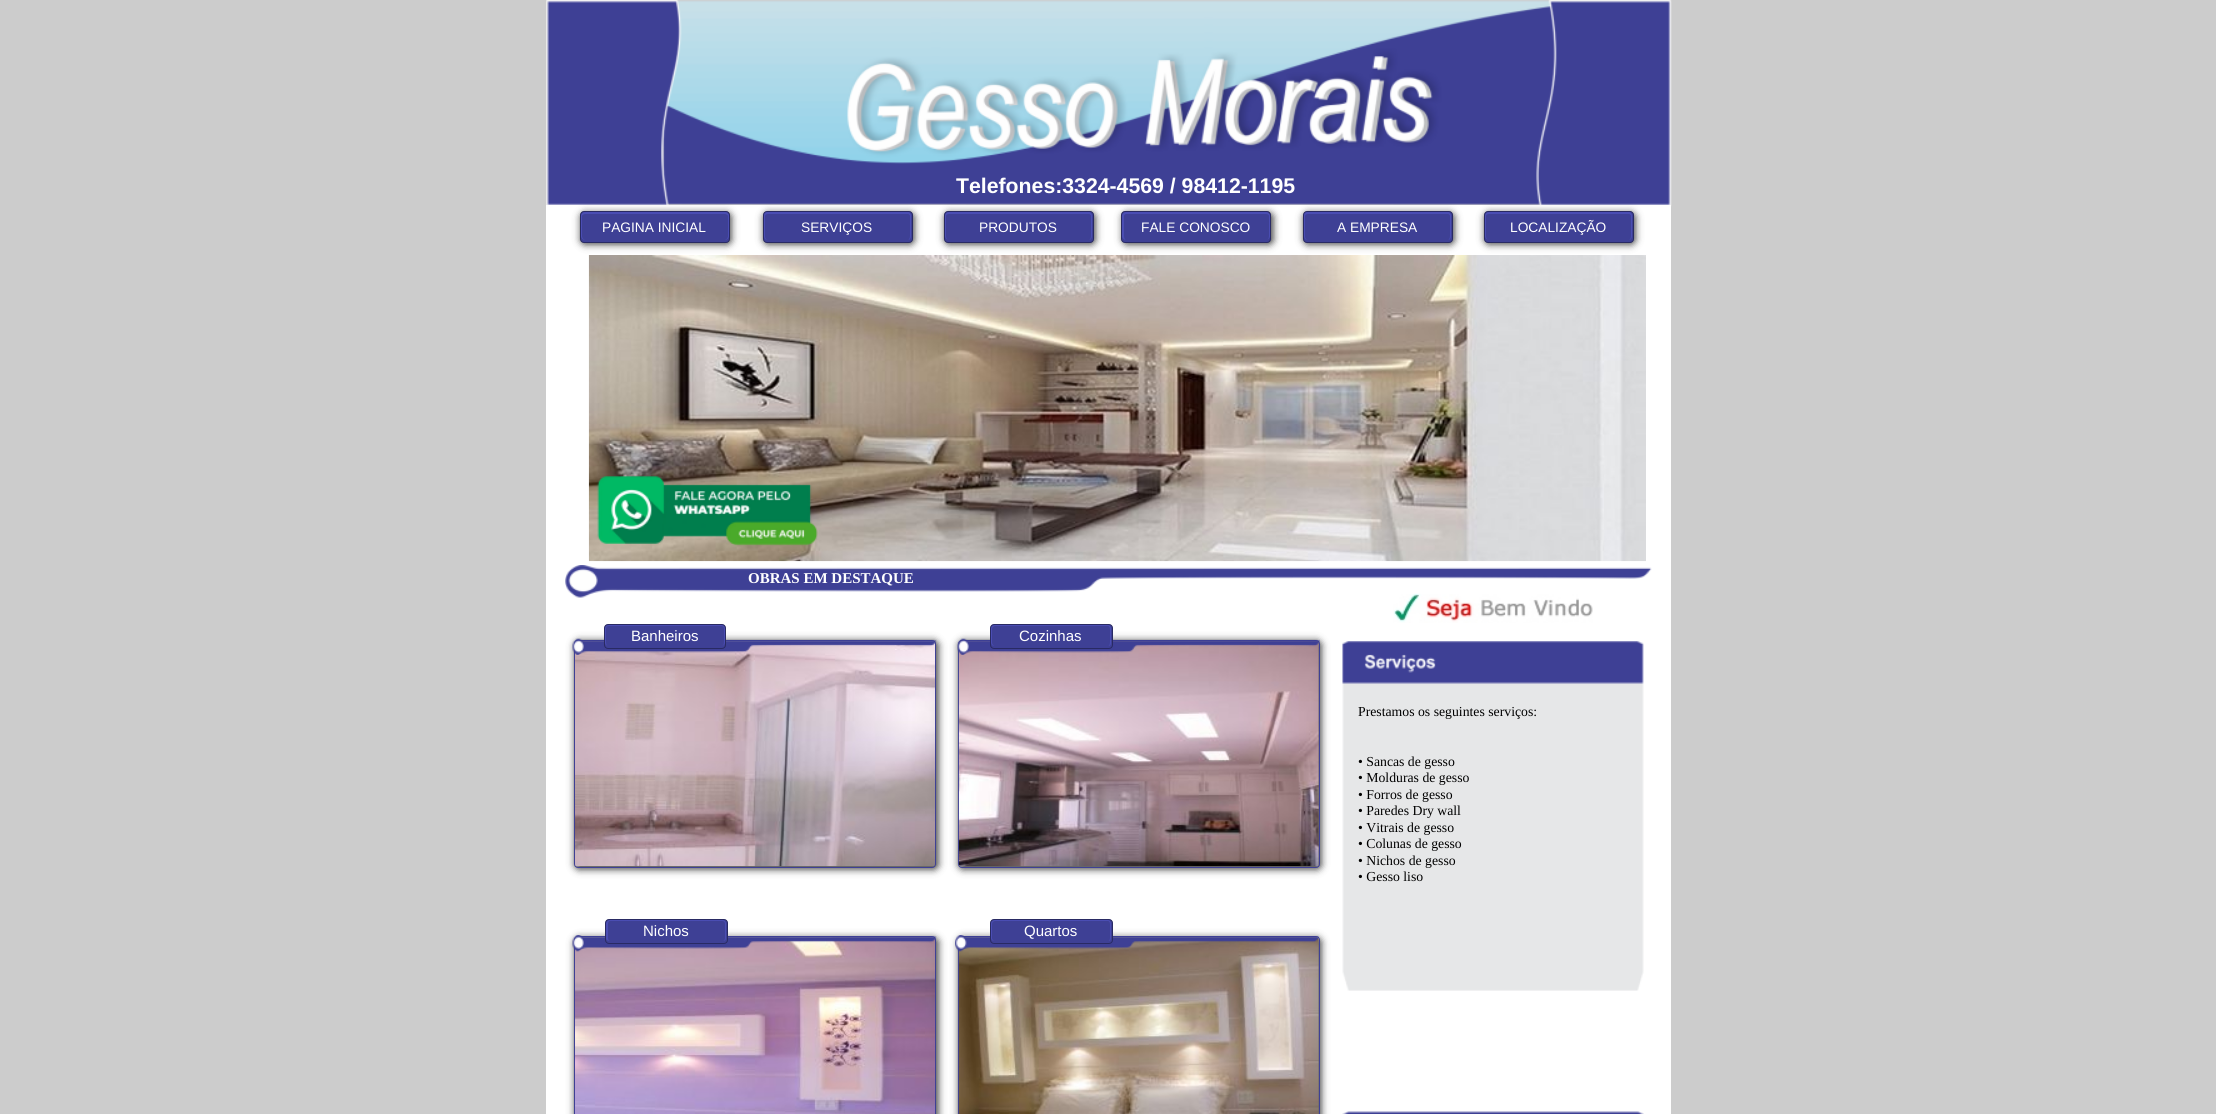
#include <cairo/cairo.h>
#include <math.h>
#include <stddef.h>


static void rounded_rect(cairo_t *cr, double x, double y, double w, double h, double r) {
  cairo_new_sub_path(cr);
  cairo_arc(cr, x + w - r, y + h - r, r, 0, M_PI / 2);
  cairo_arc(cr, x + r, y + h - r, r, M_PI / 2, M_PI);
  cairo_arc(cr, x + r, y + r, r, M_PI, 1.5 * M_PI);
  cairo_arc(cr, x + w - r, y + r, r, 1.5 * M_PI, 2 * M_PI);
  cairo_close_path(cr);
}

static void draw_shadow(cairo_t *cr, double x, double y, double w, double h, double r, double blur, double alpha) {
  cairo_push_group_with_content(cr, CAIRO_CONTENT_ALPHA);
  cairo_set_operator(cr, CAIRO_OPERATOR_SOURCE);
  for (int i = 15; i >= -15 && fmin(w, h) + blur * i / 3 > 0; i -= 2) {
    double e = blur * i / 6;
    cairo_set_source_rgba(cr, 0, 0, 0, alpha * erfc((i - 1) / 8.5) / 2);
    rounded_rect(cr, x - e, y - e, w + 2 * e, h + 2 * e, fmax(0, fmin(r + e + blur * .6, fmin(w, h) / 2 + e)));
    cairo_fill(cr);
  }
  cairo_pattern_t *soft = cairo_pop_group(cr);
  cairo_mask(cr, soft);
  cairo_pattern_destroy(soft);
}

static void draw_image(cairo_t *cr, const char *path, double x, double y, double w, double h) {
  cairo_surface_t *image = cairo_image_surface_create_from_png(path);
  cairo_save(cr);
  cairo_set_source_surface(cr, image, x, y);
  cairo_rectangle(cr, x, y, w, h);
  cairo_fill(cr);
  cairo_restore(cr);
  cairo_surface_destroy(image);
}

static void draw(cairo_t *cr) {
  cairo_set_source_rgb(cr, 204 / 255.0, 204 / 255.0, 204 / 255.0);
  cairo_paint(cr);
  draw_image(cr, "images/1.png", 546, 0, 1126, 207);
  cairo_set_source_rgb(cr, 1, 1, 1);
  cairo_rectangle(cr, 546, 205, 1125, 909);
  cairo_fill(cr);
  cairo_set_source_rgb(cr, 0, 0, 0);
  draw_shadow(cr, 581, 213, 150, 31, 4, 4, 0.8);
  cairo_set_source_rgb(cr, 62 / 255.0, 64 / 255.0, 149 / 255.0);
  rounded_rect(cr, 580.5, 211.5, 149, 31, 3.5);
  cairo_fill_preserve(cr);
  cairo_set_source_rgb(cr, 41 / 255.0, 42 / 255.0, 99 / 255.0);
  cairo_set_line_width(cr, 1);
  cairo_stroke(cr);
  cairo_set_source_rgb(cr, 74 / 255.0, 77 / 255.0, 179 / 255.0);
  cairo_set_fill_rule(cr, CAIRO_FILL_RULE_EVEN_ODD);
  cairo_new_path(cr);
  cairo_move_to(cr, 585, 212);
  cairo_line_to(cr, 725, 212);
  cairo_curve_to(cr, 727, 212, 729, 214, 729, 216);
  cairo_line_to(cr, 729, 236);
  cairo_curve_to(cr, 729, 238, 727, 240, 725, 240);
  cairo_line_to(cr, 585, 240);
  cairo_curve_to(cr, 583, 240, 581, 238, 581, 236);
  cairo_line_to(cr, 581, 216);
  cairo_curve_to(cr, 581, 214, 583, 212, 585, 212);
  cairo_close_path(cr);
  cairo_move_to(cr, 585, 214);
  cairo_line_to(cr, 725, 214);
  cairo_curve_to(cr, 726, 214, 728, 215, 728, 216);
  cairo_line_to(cr, 728, 236);
  cairo_curve_to(cr, 728, 238, 726, 240, 725, 240);
  cairo_line_to(cr, 585, 240);
  cairo_curve_to(cr, 584, 240, 582, 238, 582, 236);
  cairo_line_to(cr, 582, 216);
  cairo_curve_to(cr, 582, 215, 584, 214, 585, 214);
  cairo_close_path(cr);
  cairo_fill(cr);
  cairo_set_source_rgb(cr, 0, 0, 0);
  draw_shadow(cr, 764, 213, 150, 31, 4, 4, 0.8);
  cairo_set_source_rgb(cr, 62 / 255.0, 64 / 255.0, 149 / 255.0);
  rounded_rect(cr, 763.5, 211.5, 149, 31, 3.5);
  cairo_fill_preserve(cr);
  cairo_set_source_rgb(cr, 41 / 255.0, 42 / 255.0, 99 / 255.0);
  cairo_stroke(cr);
  cairo_set_source_rgb(cr, 74 / 255.0, 77 / 255.0, 179 / 255.0);
  cairo_new_path(cr);
  cairo_move_to(cr, 768, 212);
  cairo_line_to(cr, 908, 212);
  cairo_curve_to(cr, 910, 212, 911, 214, 911, 216);
  cairo_line_to(cr, 911, 236);
  cairo_curve_to(cr, 911, 238, 910, 240, 908, 240);
  cairo_line_to(cr, 768, 240);
  cairo_curve_to(cr, 765, 240, 764, 238, 764, 236);
  cairo_line_to(cr, 764, 216);
  cairo_curve_to(cr, 764, 214, 765, 212, 768, 212);
  cairo_close_path(cr);
  cairo_move_to(cr, 768, 214);
  cairo_line_to(cr, 908, 214);
  cairo_curve_to(cr, 909, 214, 910, 215, 910, 216);
  cairo_line_to(cr, 910, 236);
  cairo_curve_to(cr, 910, 238, 909, 240, 908, 240);
  cairo_line_to(cr, 768, 240);
  cairo_curve_to(cr, 766, 240, 765, 238, 765, 236);
  cairo_line_to(cr, 765, 216);
  cairo_curve_to(cr, 765, 215, 766, 214, 768, 214);
  cairo_close_path(cr);
  cairo_fill(cr);
  cairo_set_source_rgb(cr, 0, 0, 0);
  draw_shadow(cr, 945, 213, 150, 31, 4, 4, 0.8);
  cairo_set_source_rgb(cr, 62 / 255.0, 64 / 255.0, 149 / 255.0);
  rounded_rect(cr, 944.5, 211.5, 149, 31, 3.5);
  cairo_fill_preserve(cr);
  cairo_set_source_rgb(cr, 41 / 255.0, 42 / 255.0, 99 / 255.0);
  cairo_stroke(cr);
  cairo_set_source_rgb(cr, 74 / 255.0, 77 / 255.0, 179 / 255.0);
  cairo_new_path(cr);
  cairo_move_to(cr, 949, 212);
  cairo_line_to(cr, 1089, 212);
  cairo_curve_to(cr, 1091, 212, 1092, 214, 1092, 216);
  cairo_line_to(cr, 1092, 236);
  cairo_curve_to(cr, 1092, 238, 1091, 240, 1089, 240);
  cairo_line_to(cr, 949, 240);
  cairo_curve_to(cr, 947, 240, 945, 238, 945, 236);
  cairo_line_to(cr, 945, 216);
  cairo_curve_to(cr, 945, 214, 947, 212, 949, 212);
  cairo_close_path(cr);
  cairo_move_to(cr, 949, 214);
  cairo_line_to(cr, 1089, 214);
  cairo_curve_to(cr, 1090, 214, 1091, 215, 1091, 216);
  cairo_line_to(cr, 1091, 236);
  cairo_curve_to(cr, 1091, 238, 1090, 240, 1089, 240);
  cairo_line_to(cr, 949, 240);
  cairo_curve_to(cr, 947, 240, 946, 238, 946, 236);
  cairo_line_to(cr, 946, 216);
  cairo_curve_to(cr, 946, 215, 947, 214, 949, 214);
  cairo_close_path(cr);
  cairo_fill(cr);
  cairo_set_source_rgb(cr, 0, 0, 0);
  draw_shadow(cr, 1123, 213, 150, 31, 4, 4, 0.8);
  cairo_set_source_rgb(cr, 62 / 255.0, 64 / 255.0, 149 / 255.0);
  rounded_rect(cr, 1121.5, 211.5, 149, 31, 3.5);
  cairo_fill_preserve(cr);
  cairo_set_source_rgb(cr, 41 / 255.0, 42 / 255.0, 99 / 255.0);
  cairo_stroke(cr);
  cairo_set_source_rgb(cr, 74 / 255.0, 77 / 255.0, 179 / 255.0);
  cairo_new_path(cr);
  cairo_move_to(cr, 1126, 212);
  cairo_line_to(cr, 1266, 212);
  cairo_curve_to(cr, 1268, 212, 1270, 214, 1270, 216);
  cairo_line_to(cr, 1270, 236);
  cairo_curve_to(cr, 1270, 238, 1268, 240, 1266, 240);
  cairo_line_to(cr, 1126, 240);
  cairo_curve_to(cr, 1124, 240, 1122, 238, 1122, 236);
  cairo_line_to(cr, 1122, 216);
  cairo_curve_to(cr, 1122, 214, 1124, 212, 1126, 212);
  cairo_close_path(cr);
  cairo_move_to(cr, 1126, 214);
  cairo_line_to(cr, 1266, 214);
  cairo_curve_to(cr, 1268, 214, 1269, 215, 1269, 216);
  cairo_line_to(cr, 1269, 236);
  cairo_curve_to(cr, 1269, 238, 1268, 240, 1266, 240);
  cairo_line_to(cr, 1126, 240);
  cairo_curve_to(cr, 1125, 240, 1124, 238, 1124, 236);
  cairo_line_to(cr, 1124, 216);
  cairo_curve_to(cr, 1124, 215, 1125, 214, 1126, 214);
  cairo_close_path(cr);
  cairo_fill(cr);
  cairo_set_source_rgb(cr, 0, 0, 0);
  draw_shadow(cr, 1304, 213, 150, 31, 4, 4, 0.8);
  cairo_set_source_rgb(cr, 62 / 255.0, 64 / 255.0, 149 / 255.0);
  rounded_rect(cr, 1303.5, 211.5, 149, 31, 3.5);
  cairo_fill_preserve(cr);
  cairo_set_source_rgb(cr, 41 / 255.0, 42 / 255.0, 99 / 255.0);
  cairo_stroke(cr);
  cairo_set_source_rgb(cr, 74 / 255.0, 77 / 255.0, 179 / 255.0);
  cairo_new_path(cr);
  cairo_move_to(cr, 1308, 212);
  cairo_line_to(cr, 1448, 212);
  cairo_curve_to(cr, 1450, 212, 1451, 214, 1451, 216);
  cairo_line_to(cr, 1451, 236);
  cairo_curve_to(cr, 1451, 238, 1450, 240, 1448, 240);
  cairo_line_to(cr, 1308, 240);
  cairo_curve_to(cr, 1305, 240, 1304, 238, 1304, 236);
  cairo_line_to(cr, 1304, 216);
  cairo_curve_to(cr, 1304, 214, 1305, 212, 1308, 212);
  cairo_close_path(cr);
  cairo_move_to(cr, 1308, 214);
  cairo_line_to(cr, 1448, 214);
  cairo_curve_to(cr, 1449, 214, 1450, 215, 1450, 216);
  cairo_line_to(cr, 1450, 236);
  cairo_curve_to(cr, 1450, 238, 1449, 240, 1448, 240);
  cairo_line_to(cr, 1308, 240);
  cairo_curve_to(cr, 1306, 240, 1305, 238, 1305, 236);
  cairo_line_to(cr, 1305, 216);
  cairo_curve_to(cr, 1305, 215, 1306, 214, 1308, 214);
  cairo_close_path(cr);
  cairo_fill(cr);
  cairo_set_source_rgb(cr, 0, 0, 0);
  draw_shadow(cr, 1485, 213, 150, 31, 4, 4, 0.8);
  cairo_set_source_rgb(cr, 62 / 255.0, 64 / 255.0, 149 / 255.0);
  rounded_rect(cr, 1484.5, 211.5, 149, 31, 3.5);
  cairo_fill_preserve(cr);
  cairo_set_source_rgb(cr, 41 / 255.0, 42 / 255.0, 99 / 255.0);
  cairo_stroke(cr);
  cairo_set_source_rgb(cr, 74 / 255.0, 77 / 255.0, 179 / 255.0);
  cairo_new_path(cr);
  cairo_move_to(cr, 1489, 212);
  cairo_line_to(cr, 1629, 212);
  cairo_curve_to(cr, 1631, 212, 1632, 214, 1632, 216);
  cairo_line_to(cr, 1632, 236);
  cairo_curve_to(cr, 1632, 238, 1631, 240, 1629, 240);
  cairo_line_to(cr, 1489, 240);
  cairo_curve_to(cr, 1487, 240, 1485, 238, 1485, 236);
  cairo_line_to(cr, 1485, 216);
  cairo_curve_to(cr, 1485, 214, 1487, 212, 1489, 212);
  cairo_close_path(cr);
  cairo_move_to(cr, 1489, 214);
  cairo_line_to(cr, 1629, 214);
  cairo_curve_to(cr, 1630, 214, 1631, 215, 1631, 216);
  cairo_line_to(cr, 1631, 236);
  cairo_curve_to(cr, 1631, 238, 1630, 240, 1629, 240);
  cairo_line_to(cr, 1489, 240);
  cairo_curve_to(cr, 1487, 240, 1486, 238, 1486, 236);
  cairo_line_to(cr, 1486, 216);
  cairo_curve_to(cr, 1486, 215, 1487, 214, 1489, 214);
  cairo_close_path(cr);
  cairo_fill(cr);
  draw_image(cr, "images/2.png", 588, 255, 1058, 307);
  draw_image(cr, "images/3.png", 597, 476, 221, 70);
  draw_image(cr, "images/5.png", 1393, 593, 200, 30);
  draw_image(cr, "images/4.png", 565, 565, 1087, 33);
  cairo_set_source_rgb(cr, 0, 0, 0);
  draw_shadow(cr, 575, 641, 363, 228, 4, 4, 0.8);
  rounded_rect(cr, 574.5, 640.5, 361, 227, 3.5);
  cairo_set_source_rgb(cr, 62 / 255.0, 64 / 255.0, 149 / 255.0);
  cairo_stroke(cr);
  draw_image(cr, "images/6.png", 575, 641, 360, 226);
  cairo_set_source_rgb(cr, 0, 0, 0);
  draw_shadow(cr, 959, 641, 362, 228, 4, 4, 0.8);
  rounded_rect(cr, 958.5, 640.5, 361, 227, 3.5);
  cairo_set_source_rgb(cr, 62 / 255.0, 64 / 255.0, 149 / 255.0);
  cairo_stroke(cr);
  draw_image(cr, "images/7.png", 958, 641, 361, 226);
  draw_image(cr, "images/8.png", 572, 638, 365, 17);
  rounded_rect(cr, 604.5, 624.5, 121, 24, 3.5);
  cairo_fill_preserve(cr);
  cairo_set_source_rgb(cr, 41 / 255.0, 42 / 255.0, 99 / 255.0);
  cairo_stroke(cr);
  cairo_set_source_rgb(cr, 74 / 255.0, 77 / 255.0, 179 / 255.0);
  cairo_new_path(cr);
  cairo_move_to(cr, 609, 625);
  cairo_line_to(cr, 721, 625);
  cairo_curve_to(cr, 723, 625, 725, 627, 725, 629);
  cairo_line_to(cr, 725, 642);
  cairo_curve_to(cr, 725, 645, 723, 646, 721, 646);
  cairo_line_to(cr, 609, 646);
  cairo_curve_to(cr, 607, 646, 605, 645, 605, 642);
  cairo_line_to(cr, 605, 629);
  cairo_curve_to(cr, 605, 627, 607, 625, 609, 625);
  cairo_close_path(cr);
  cairo_move_to(cr, 609, 626);
  cairo_line_to(cr, 721, 626);
  cairo_curve_to(cr, 723, 626, 724, 627, 724, 629);
  cairo_line_to(cr, 724, 642);
  cairo_curve_to(cr, 724, 645, 723, 646, 721, 646);
  cairo_line_to(cr, 609, 646);
  cairo_curve_to(cr, 607, 646, 606, 645, 606, 642);
  cairo_line_to(cr, 606, 629);
  cairo_curve_to(cr, 606, 627, 607, 626, 609, 626);
  cairo_close_path(cr);
  cairo_fill(cr);
  draw_image(cr, "images/9.png", 957, 638, 363, 17);
  cairo_set_source_rgb(cr, 62 / 255.0, 64 / 255.0, 149 / 255.0);
  rounded_rect(cr, 990.5, 624.5, 122, 24, 3.5);
  cairo_fill_preserve(cr);
  cairo_set_source_rgb(cr, 41 / 255.0, 42 / 255.0, 99 / 255.0);
  cairo_stroke(cr);
  cairo_set_source_rgb(cr, 74 / 255.0, 77 / 255.0, 179 / 255.0);
  cairo_new_path(cr);
  cairo_move_to(cr, 995, 625);
  cairo_line_to(cr, 1108, 625);
  cairo_curve_to(cr, 1110, 625, 1111, 627, 1111, 629);
  cairo_line_to(cr, 1111, 642);
  cairo_curve_to(cr, 1111, 645, 1110, 646, 1108, 646);
  cairo_line_to(cr, 995, 646);
  cairo_curve_to(cr, 993, 646, 991, 645, 991, 642);
  cairo_line_to(cr, 991, 629);
  cairo_curve_to(cr, 991, 627, 993, 625, 995, 625);
  cairo_close_path(cr);
  cairo_move_to(cr, 995, 626);
  cairo_line_to(cr, 1108, 626);
  cairo_curve_to(cr, 1109, 626, 1110, 627, 1110, 629);
  cairo_line_to(cr, 1110, 642);
  cairo_curve_to(cr, 1110, 645, 1109, 646, 1108, 646);
  cairo_line_to(cr, 995, 646);
  cairo_curve_to(cr, 994, 646, 992, 645, 992, 642);
  cairo_line_to(cr, 992, 629);
  cairo_curve_to(cr, 992, 627, 994, 626, 995, 626);
  cairo_close_path(cr);
  cairo_fill(cr);
  draw_image(cr, "images/10.png", 1342, 641, 302, 350);
  cairo_set_source_rgb(cr, 0, 0, 0);
  draw_shadow(cr, 575, 938, 363, 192, 4, 4, 0.8);
  rounded_rect(cr, 574.5, 936.5, 361, 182, 3.5);
  cairo_set_source_rgb(cr, 62 / 255.0, 64 / 255.0, 149 / 255.0);
  cairo_stroke(cr);
  draw_image(cr, "images/11.png", 575, 937, 360, 177);
  draw_image(cr, "images/13.png", 572, 935, 365, 17);
  rounded_rect(cr, 605.5, 919.5, 122, 24, 3.5);
  cairo_fill_preserve(cr);
  cairo_set_source_rgb(cr, 41 / 255.0, 42 / 255.0, 99 / 255.0);
  cairo_stroke(cr);
  cairo_set_source_rgb(cr, 74 / 255.0, 77 / 255.0, 179 / 255.0);
  cairo_new_path(cr);
  cairo_move_to(cr, 610, 920);
  cairo_line_to(cr, 722, 920);
  cairo_curve_to(cr, 725, 920, 726, 922, 726, 924);
  cairo_line_to(cr, 726, 938);
  cairo_curve_to(cr, 726, 940, 725, 941, 722, 941);
  cairo_line_to(cr, 610, 941);
  cairo_curve_to(cr, 608, 941, 606, 940, 606, 938);
  cairo_line_to(cr, 606, 924);
  cairo_curve_to(cr, 606, 922, 608, 920, 610, 920);
  cairo_close_path(cr);
  cairo_move_to(cr, 610, 921);
  cairo_line_to(cr, 722, 921);
  cairo_curve_to(cr, 724, 921, 725, 922, 725, 924);
  cairo_line_to(cr, 725, 938);
  cairo_curve_to(cr, 725, 940, 724, 941, 722, 941);
  cairo_line_to(cr, 610, 941);
  cairo_curve_to(cr, 609, 941, 608, 940, 608, 938);
  cairo_line_to(cr, 608, 924);
  cairo_curve_to(cr, 608, 922, 609, 921, 610, 921);
  cairo_close_path(cr);
  cairo_fill(cr);
  cairo_set_source_rgb(cr, 0, 0, 0);
  draw_shadow(cr, 959, 938, 362, 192, 4, 4, 0.8);
  rounded_rect(cr, 958.5, 936.5, 361, 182, 3.5);
  cairo_set_source_rgb(cr, 62 / 255.0, 64 / 255.0, 149 / 255.0);
  cairo_stroke(cr);
  draw_image(cr, "images/12.png", 958, 937, 361, 177);
  draw_image(cr, "images/14.png", 955, 935, 364, 17);
  rounded_rect(cr, 990.5, 919.5, 122, 24, 3.5);
  cairo_fill_preserve(cr);
  cairo_set_source_rgb(cr, 41 / 255.0, 42 / 255.0, 99 / 255.0);
  cairo_stroke(cr);
  cairo_set_source_rgb(cr, 74 / 255.0, 77 / 255.0, 179 / 255.0);
  cairo_new_path(cr);
  cairo_move_to(cr, 995, 920);
  cairo_line_to(cr, 1108, 920);
  cairo_curve_to(cr, 1110, 920, 1111, 922, 1111, 924);
  cairo_line_to(cr, 1111, 938);
  cairo_curve_to(cr, 1111, 940, 1110, 941, 1108, 941);
  cairo_line_to(cr, 995, 941);
  cairo_curve_to(cr, 993, 941, 991, 940, 991, 938);
  cairo_line_to(cr, 991, 924);
  cairo_curve_to(cr, 991, 922, 993, 920, 995, 920);
  cairo_close_path(cr);
  cairo_move_to(cr, 995, 921);
  cairo_line_to(cr, 1108, 921);
  cairo_curve_to(cr, 1109, 921, 1110, 922, 1110, 924);
  cairo_line_to(cr, 1110, 938);
  cairo_curve_to(cr, 1110, 940, 1109, 941, 1108, 941);
  cairo_line_to(cr, 995, 941);
  cairo_curve_to(cr, 994, 941, 992, 940, 992, 938);
  cairo_line_to(cr, 992, 924);
  cairo_curve_to(cr, 992, 922, 994, 921, 995, 921);
  cairo_close_path(cr);
  cairo_fill(cr);
  draw_image(cr, "images/15.png", 1342, 1111, 302, 3);
  cairo_save(cr);
  cairo_set_fill_rule(cr, CAIRO_FILL_RULE_WINDING);
  cairo_rectangle(cr, 956, 174, 365, 30);
  cairo_clip(cr);
  cairo_select_font_face(cr, "Liberation Sans", CAIRO_FONT_SLANT_NORMAL, CAIRO_FONT_WEIGHT_BOLD);
  cairo_set_font_size(cr, 21.25);
  cairo_set_source_rgb(cr, 1, 1, 1);
  cairo_move_to(cr, 956, 193);
  cairo_show_text(cr, "Telefones:3324-4569 / 98412-1195");
  cairo_restore(cr);
  cairo_select_font_face(cr, "Liberation Sans", CAIRO_FONT_SLANT_NORMAL, CAIRO_FONT_WEIGHT_NORMAL);
  cairo_set_font_size(cr, 13.75);
  cairo_set_source_rgb(cr, 1, 1, 1);
  cairo_move_to(cr, 602, 232);
  cairo_show_text(cr, "PAGINA INICIAL");
  cairo_move_to(cr, 801, 232);
  cairo_show_text(cr, "SERVIÇOS");
  cairo_move_to(cr, 979, 232);
  cairo_show_text(cr, "PRODUTOS");
  cairo_move_to(cr, 1141, 232);
  cairo_show_text(cr, "FALE CONOSCO");
  cairo_move_to(cr, 1337, 232);
  cairo_show_text(cr, "A EMPRESA");
  cairo_move_to(cr, 1510, 232);
  cairo_show_text(cr, "LOCALIZAÇÃO");
  cairo_select_font_face(cr, "Liberation Serif", CAIRO_FONT_SLANT_NORMAL, CAIRO_FONT_WEIGHT_BOLD);
  cairo_set_font_size(cr, 15);
  cairo_move_to(cr, 748, 583);
  cairo_show_text(cr, "OBRAS EM DESTAQUE");
  cairo_select_font_face(cr, "Liberation Sans", CAIRO_FONT_SLANT_NORMAL, CAIRO_FONT_WEIGHT_NORMAL);
  cairo_move_to(cr, 631, 641);
  cairo_show_text(cr, "Banheiros");
  cairo_move_to(cr, 1019, 641);
  cairo_show_text(cr, "Cozinhas");
  cairo_select_font_face(cr, "Liberation Serif", CAIRO_FONT_SLANT_NORMAL, CAIRO_FONT_WEIGHT_NORMAL);
  cairo_set_font_size(cr, 13.75);
  cairo_set_source_rgb(cr, 0, 0, 0);
  cairo_move_to(cr, 1358, 716);
  cairo_show_text(cr, "Prestamos os seguintes serviços:");
  cairo_move_to(cr, 1358, 766);
  cairo_show_text(cr, "• Sancas de gesso");
  cairo_move_to(cr, 1358, 782);
  cairo_show_text(cr, "• Molduras de gesso");
  cairo_move_to(cr, 1358, 799);
  cairo_show_text(cr, "• Forros de gesso");
  cairo_move_to(cr, 1358, 815);
  cairo_show_text(cr, "• Paredes Dry wall");
  cairo_move_to(cr, 1358, 832);
  cairo_show_text(cr, "• Vitrais de gesso");
  cairo_move_to(cr, 1358, 848);
  cairo_show_text(cr, "• Colunas de gesso");
  cairo_move_to(cr, 1358, 865);
  cairo_show_text(cr, "• Nichos de gesso");
  cairo_move_to(cr, 1358, 881);
  cairo_show_text(cr, "• Gesso liso");
  cairo_select_font_face(cr, "Liberation Sans", CAIRO_FONT_SLANT_NORMAL, CAIRO_FONT_WEIGHT_NORMAL);
  cairo_set_font_size(cr, 15);
  cairo_set_source_rgb(cr, 1, 1, 1);
  cairo_move_to(cr, 643, 936);
  cairo_show_text(cr, "Nichos");
  cairo_move_to(cr, 1024, 936);
  cairo_show_text(cr, "Quartos");
}

int main(void) {
  cairo_surface_t *surface = cairo_image_surface_create(CAIRO_FORMAT_RGB24, 2216, 1114);
  cairo_t *cr = cairo_create(surface);
  cairo_font_options_t *options = cairo_font_options_create();
  cairo_font_options_set_hint_metrics(options, CAIRO_HINT_METRICS_OFF);
  cairo_font_options_set_hint_style(options, CAIRO_HINT_STYLE_NONE);
  cairo_set_font_options(cr, options);
  cairo_set_miter_limit(cr, 4);
  draw(cr);
  cairo_surface_write_to_png(surface, "out.png");
  cairo_font_options_destroy(options);
  cairo_destroy(cr);
  cairo_surface_destroy(surface);
  return 0;
}
